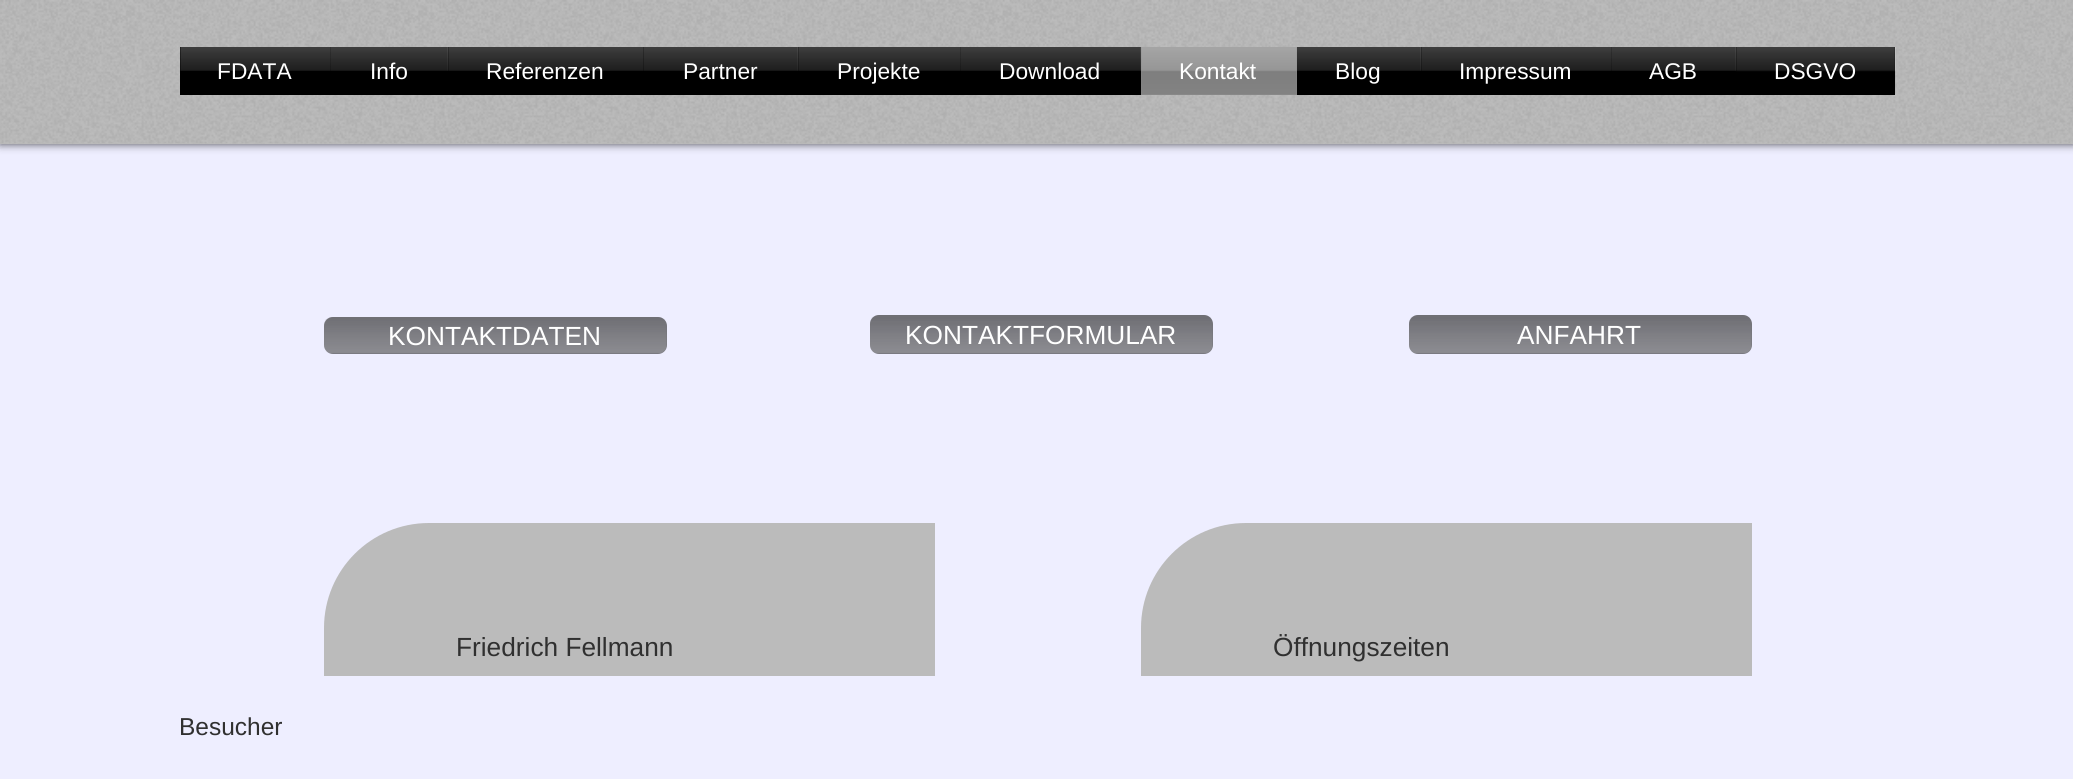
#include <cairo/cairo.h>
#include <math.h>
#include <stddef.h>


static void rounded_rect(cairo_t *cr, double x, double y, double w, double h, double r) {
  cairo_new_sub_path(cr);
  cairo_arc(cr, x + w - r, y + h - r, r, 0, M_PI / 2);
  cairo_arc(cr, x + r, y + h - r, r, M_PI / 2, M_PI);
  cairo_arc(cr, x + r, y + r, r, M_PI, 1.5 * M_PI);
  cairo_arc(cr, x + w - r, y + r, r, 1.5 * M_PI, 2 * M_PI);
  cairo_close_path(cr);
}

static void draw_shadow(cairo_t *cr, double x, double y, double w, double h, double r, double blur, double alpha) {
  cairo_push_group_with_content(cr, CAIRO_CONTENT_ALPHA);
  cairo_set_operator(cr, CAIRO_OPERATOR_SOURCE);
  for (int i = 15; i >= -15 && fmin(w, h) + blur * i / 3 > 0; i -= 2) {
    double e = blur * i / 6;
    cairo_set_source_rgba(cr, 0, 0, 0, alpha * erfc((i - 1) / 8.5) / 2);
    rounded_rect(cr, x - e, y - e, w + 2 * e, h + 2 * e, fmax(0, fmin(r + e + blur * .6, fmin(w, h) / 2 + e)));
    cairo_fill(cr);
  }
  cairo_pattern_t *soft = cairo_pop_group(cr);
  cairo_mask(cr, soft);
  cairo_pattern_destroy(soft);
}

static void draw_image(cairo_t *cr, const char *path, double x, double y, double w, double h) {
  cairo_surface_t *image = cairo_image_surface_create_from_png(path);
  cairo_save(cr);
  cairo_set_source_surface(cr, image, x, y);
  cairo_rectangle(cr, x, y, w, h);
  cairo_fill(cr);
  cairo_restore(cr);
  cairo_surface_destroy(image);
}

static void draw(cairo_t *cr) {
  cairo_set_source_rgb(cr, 238 / 255.0, 238 / 255.0, 1);
  cairo_paint(cr);
  cairo_set_source_rgb(cr, 0, 0, 0);
  draw_shadow(cr, 0, 0, 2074, 144, 0, 4.5, 0.7);
  cairo_set_source_rgb(cr, 187 / 255.0, 187 / 255.0, 187 / 255.0);
  cairo_rectangle(cr, 0, 0, 2073, 144);
  cairo_fill(cr);
  draw_image(cr, "images/1.png", 0, 0, 2073, 144);
  cairo_set_source_rgb(cr, 0, 0, 0);
  cairo_rectangle(cr, 180, 47, 961, 48);
  cairo_fill(cr);
  draw_image(cr, "images/2.png", 180, 47, 151, 24);
  draw_image(cr, "images/3.png", 330, 47, 118, 24);
  draw_image(cr, "images/4.png", 447, 47, 197, 24);
  draw_image(cr, "images/5.png", 644, 47, 154, 24);
  draw_image(cr, "images/6.png", 797, 47, 164, 24);
  draw_image(cr, "images/7.png", 960, 47, 181, 24);
  cairo_set_source_rgb(cr, 136 / 255.0, 136 / 255.0, 136 / 255.0);
  cairo_rectangle(cr, 1141, 47, 156, 48);
  cairo_fill(cr);
  draw_image(cr, "images/8.png", 1140, 47, 157, 47);
  cairo_set_source_rgb(cr, 0, 0, 0);
  cairo_rectangle(cr, 1297, 47, 598, 48);
  cairo_fill(cr);
  draw_image(cr, "images/9.png", 1296, 47, 125, 24);
  draw_image(cr, "images/10.png", 1420, 47, 192, 24);
  draw_image(cr, "images/11.png", 1611, 47, 125, 24);
  draw_image(cr, "images/12.png", 1735, 47, 161, 47);
  cairo_set_source_rgb(cr, 116 / 255.0, 116 / 255.0, 123 / 255.0);
  rounded_rect(cr, 324, 317, 343, 37, 9);
  cairo_fill(cr);
  draw_image(cr, "images/13.png", 324, 317, 343, 36);
  draw_image(cr, "images/14.png", 324, 317, 343, 37);
  rounded_rect(cr, 870, 315, 343, 39, 9);
  cairo_fill(cr);
  draw_image(cr, "images/15.png", 870, 315, 343, 38);
  draw_image(cr, "images/16.png", 870, 315, 343, 39);
  rounded_rect(cr, 1409, 315, 343, 39, 9);
  cairo_fill(cr);
  draw_image(cr, "images/15.png", 1409, 315, 343, 38);
  draw_image(cr, "images/16.png", 1409, 315, 343, 39);
  cairo_set_source_rgb(cr, 187 / 255.0, 187 / 255.0, 187 / 255.0);
  cairo_new_path(cr);
  cairo_move_to(cr, 429, 523);
  cairo_line_to(cr, 935, 523);
  cairo_line_to(cr, 935, 779);
  cairo_curve_to(cr, 935, 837, 888, 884, 830, 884);
  cairo_line_to(cr, 324, 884);
  cairo_line_to(cr, 324, 628);
  cairo_curve_to(cr, 324, 570, 371, 523, 429, 523);
  cairo_close_path(cr);
  cairo_fill(cr);
  cairo_new_path(cr);
  cairo_move_to(cr, 1246, 523);
  cairo_line_to(cr, 1752, 523);
  cairo_line_to(cr, 1752, 779);
  cairo_curve_to(cr, 1752, 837, 1705, 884, 1647, 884);
  cairo_line_to(cr, 1141, 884);
  cairo_line_to(cr, 1141, 628);
  cairo_curve_to(cr, 1141, 570, 1188, 523, 1246, 523);
  cairo_close_path(cr);
  cairo_fill(cr);
  cairo_set_source_rgb(cr, 238 / 255.0, 238 / 255.0, 1);
  cairo_rectangle(cr, 324, 676, 1428, 103);
  cairo_fill(cr);
  cairo_select_font_face(cr, "Liberation Sans", CAIRO_FONT_SLANT_NORMAL, CAIRO_FONT_WEIGHT_NORMAL);
  cairo_set_font_size(cr, 22.75);
  cairo_set_source_rgb(cr, 1, 1, 1);
  cairo_move_to(cr, 217, 79);
  cairo_show_text(cr, "FDATA");
  cairo_move_to(cr, 370, 79);
  cairo_show_text(cr, "Info");
  cairo_move_to(cr, 486, 79);
  cairo_show_text(cr, "Referenzen");
  cairo_move_to(cr, 683, 79);
  cairo_show_text(cr, "Partner");
  cairo_move_to(cr, 837, 79);
  cairo_show_text(cr, "Projekte");
  cairo_move_to(cr, 999, 79);
  cairo_show_text(cr, "Download");
  cairo_move_to(cr, 1179, 79);
  cairo_show_text(cr, "Kontakt");
  cairo_move_to(cr, 1335, 79);
  cairo_show_text(cr, "Blog");
  cairo_move_to(cr, 1459, 79);
  cairo_show_text(cr, "Impressum");
  cairo_move_to(cr, 1649, 79);
  cairo_show_text(cr, "AGB");
  cairo_move_to(cr, 1774, 79);
  cairo_show_text(cr, "DSGVO");
  cairo_set_font_size(cr, 26.25);
  cairo_move_to(cr, 388, 345);
  cairo_show_text(cr, "KONTAKTDATEN");
  cairo_move_to(cr, 905, 344);
  cairo_show_text(cr, "KONTAKTFORMULAR");
  cairo_move_to(cr, 1517, 344);
  cairo_show_text(cr, "ANFAHRT");
  cairo_set_source_rgb(cr, 48 / 255.0, 48 / 255.0, 48 / 255.0);
  cairo_move_to(cr, 456, 656);
  cairo_show_text(cr, "Friedrich Fellmann");
  cairo_move_to(cr, 1273, 656);
  cairo_show_text(cr, "Öffnungszeiten");
  cairo_set_font_size(cr, 24.5);
  cairo_move_to(cr, 179, 735);
  cairo_show_text(cr, "Besucher");
}

int main(void) {
  cairo_surface_t *surface = cairo_image_surface_create(CAIRO_FORMAT_RGB24, 2073, 779);
  cairo_t *cr = cairo_create(surface);
  cairo_font_options_t *options = cairo_font_options_create();
  cairo_font_options_set_hint_metrics(options, CAIRO_HINT_METRICS_OFF);
  cairo_font_options_set_hint_style(options, CAIRO_HINT_STYLE_NONE);
  cairo_set_font_options(cr, options);
  cairo_set_miter_limit(cr, 4);
  draw(cr);
  cairo_surface_write_to_png(surface, "out.png");
  cairo_font_options_destroy(options);
  cairo_destroy(cr);
  cairo_surface_destroy(surface);
  return 0;
}
